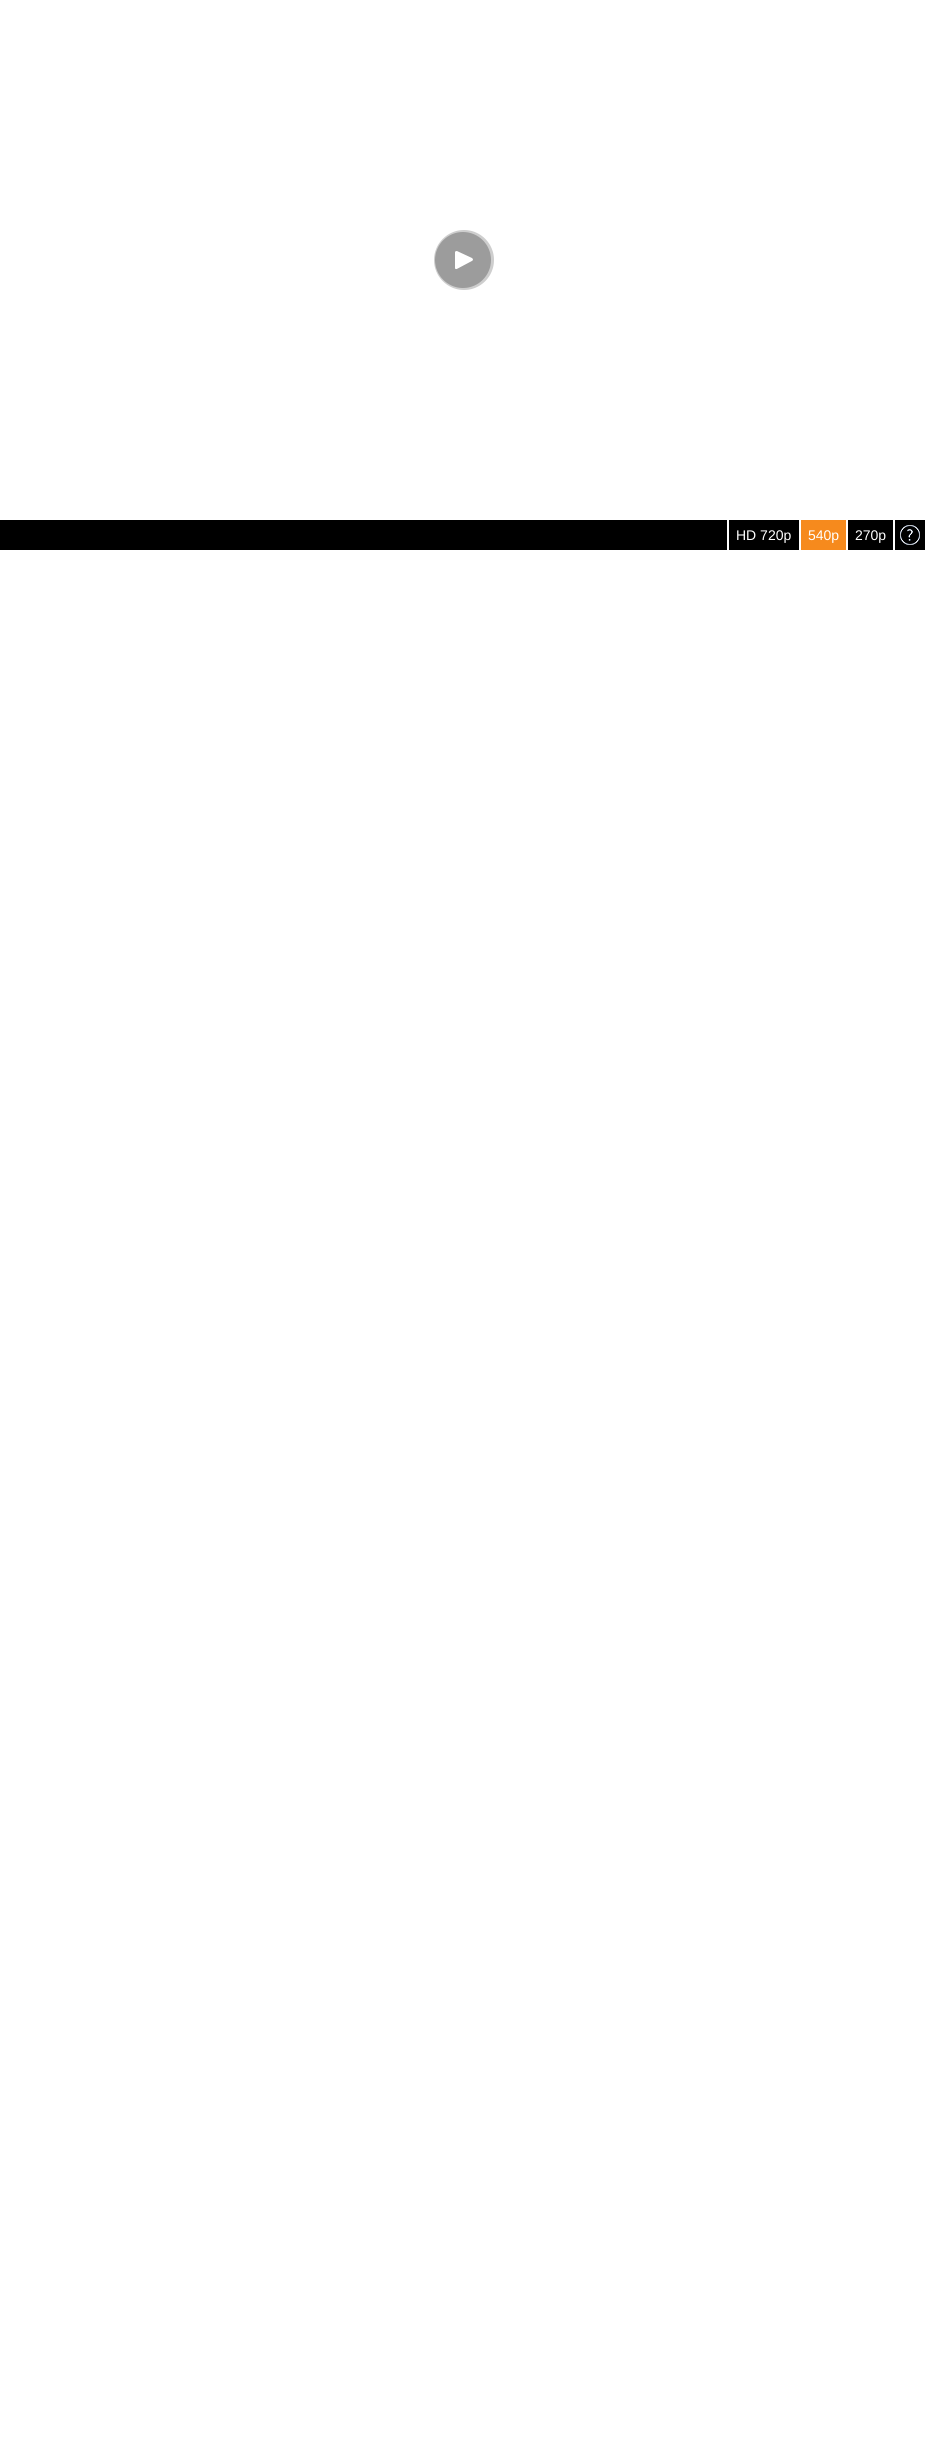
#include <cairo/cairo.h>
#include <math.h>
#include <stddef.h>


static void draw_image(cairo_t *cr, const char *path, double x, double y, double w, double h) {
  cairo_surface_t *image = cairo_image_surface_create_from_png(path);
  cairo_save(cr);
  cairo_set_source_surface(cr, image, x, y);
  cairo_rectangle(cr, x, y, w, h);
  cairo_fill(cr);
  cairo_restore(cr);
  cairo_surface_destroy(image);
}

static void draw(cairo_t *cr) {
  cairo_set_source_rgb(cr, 1, 1, 1);
  cairo_paint(cr);
  draw_image(cr, "images/1.png", 434, 230, 60, 60);
  cairo_set_source_rgb(cr, 0, 0, 0);
  cairo_rectangle(cr, 0, 520, 925, 30);
  cairo_fill(cr);
  cairo_set_source_rgb(cr, 1, 1, 1);
  cairo_rectangle(cr, 727, 520, 2, 30);
  cairo_fill(cr);
  cairo_set_source_rgb(cr, 246 / 255.0, 138 / 255.0, 29 / 255.0);
  cairo_rectangle(cr, 801, 520, 45, 30);
  cairo_fill(cr);
  cairo_set_source_rgb(cr, 1, 1, 1);
  cairo_rectangle(cr, 799, 520, 2, 30);
  cairo_fill(cr);
  cairo_rectangle(cr, 846, 520, 2, 30);
  cairo_fill(cr);
  cairo_rectangle(cr, 893, 520, 2, 30);
  cairo_fill(cr);
  draw_image(cr, "images/2.png", 900, 525, 20, 20);
  cairo_select_font_face(cr, "Liberation Sans", CAIRO_FONT_SLANT_NORMAL, CAIRO_FONT_WEIGHT_NORMAL);
  cairo_set_font_size(cr, 14);
  cairo_move_to(cr, 736, 540);
  cairo_show_text(cr, "HD 720p");
  cairo_move_to(cr, 808, 540);
  cairo_show_text(cr, "540p");
  cairo_move_to(cr, 855, 540);
  cairo_show_text(cr, "270p");
}

int main(void) {
  cairo_surface_t *surface = cairo_image_surface_create(CAIRO_FORMAT_RGB24, 925, 2456);
  cairo_t *cr = cairo_create(surface);
  cairo_font_options_t *options = cairo_font_options_create();
  cairo_font_options_set_hint_metrics(options, CAIRO_HINT_METRICS_OFF);
  cairo_font_options_set_hint_style(options, CAIRO_HINT_STYLE_NONE);
  cairo_set_font_options(cr, options);
  cairo_set_miter_limit(cr, 4);
  draw(cr);
  cairo_surface_write_to_png(surface, "out.png");
  cairo_font_options_destroy(options);
  cairo_destroy(cr);
  cairo_surface_destroy(surface);
  return 0;
}
